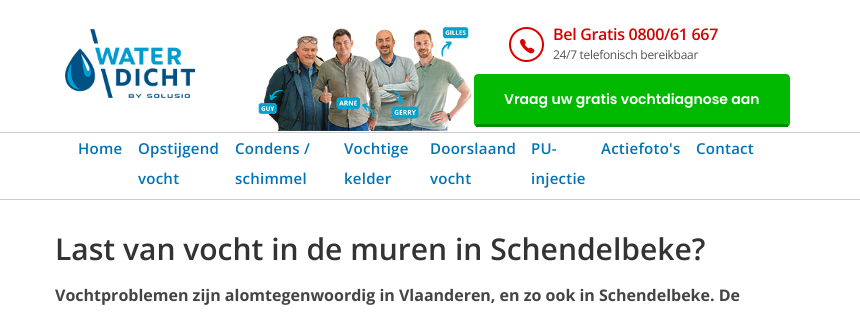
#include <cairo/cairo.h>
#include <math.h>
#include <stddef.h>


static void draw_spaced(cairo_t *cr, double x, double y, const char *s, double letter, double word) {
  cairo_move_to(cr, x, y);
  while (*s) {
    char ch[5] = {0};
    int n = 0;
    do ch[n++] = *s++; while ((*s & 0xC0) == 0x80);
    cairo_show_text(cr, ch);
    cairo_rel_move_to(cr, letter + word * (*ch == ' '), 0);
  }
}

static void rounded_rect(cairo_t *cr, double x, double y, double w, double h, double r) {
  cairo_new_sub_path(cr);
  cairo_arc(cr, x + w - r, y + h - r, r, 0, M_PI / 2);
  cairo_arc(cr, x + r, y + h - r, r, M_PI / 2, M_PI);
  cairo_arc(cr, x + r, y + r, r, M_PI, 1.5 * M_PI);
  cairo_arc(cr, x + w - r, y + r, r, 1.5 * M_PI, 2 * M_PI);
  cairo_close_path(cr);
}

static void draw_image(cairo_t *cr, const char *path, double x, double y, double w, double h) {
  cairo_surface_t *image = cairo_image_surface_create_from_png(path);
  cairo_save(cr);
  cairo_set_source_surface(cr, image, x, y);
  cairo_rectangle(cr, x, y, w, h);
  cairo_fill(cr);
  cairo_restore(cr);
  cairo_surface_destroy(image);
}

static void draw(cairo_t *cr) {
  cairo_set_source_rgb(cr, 1, 1, 1);
  cairo_paint(cr);
  draw_image(cr, "images/1.png", 65, 29, 130, 69);
  draw_image(cr, "images/2.png", 258, 27, 214, 104);
  cairo_arc(cr, 526.5, 44.5, 16.5, 0, 2 * M_PI);
  cairo_set_source_rgb(cr, 217 / 255.0, 0, 0);
  cairo_stroke(cr);
  draw_image(cr, "images/3.png", 520, 38, 15, 16);
  cairo_set_source_rgb(cr, 0, 185 / 255.0, 0);
  rounded_rect(cr, 474, 74, 316, 53, 4);
  cairo_fill(cr);
  cairo_set_source_rgb(cr, 0, 140 / 255.0, 0);
  cairo_rectangle(cr, 476, 124, 312, 3);
  cairo_fill(cr);
  cairo_set_source_rgb(cr, 204 / 255.0, 204 / 255.0, 204 / 255.0);
  cairo_rectangle(cr, 0, 132, 860, 1);
  cairo_fill(cr);
  cairo_rectangle(cr, 0, 199, 860, 1);
  cairo_fill(cr);
  cairo_select_font_face(cr, "Open Sans SemiBold", CAIRO_FONT_SLANT_NORMAL, CAIRO_FONT_WEIGHT_NORMAL);
  cairo_set_font_size(cr, 16);
  cairo_set_source_rgb(cr, 217 / 255.0, 0, 0);
  draw_spaced(cr, 553, 40, "Bel Gratis 0800/61 667", -0.3, 0);
  cairo_select_font_face(cr, "Open Sans", CAIRO_FONT_SLANT_NORMAL, CAIRO_FONT_WEIGHT_NORMAL);
  cairo_set_font_size(cr, 12);
  cairo_set_source_rgb(cr, 83 / 255.0, 83 / 255.0, 83 / 255.0);
  draw_spaced(cr, 553, 59, "24/7 telefonisch bereikbaar", -0.3, 0);
  cairo_select_font_face(cr, "Poppins SemiBold", CAIRO_FONT_SLANT_NORMAL, CAIRO_FONT_WEIGHT_NORMAL);
  cairo_set_font_size(cr, 14);
  cairo_set_source_rgb(cr, 1, 1, 1);
  cairo_move_to(cr, 504, 104);
  cairo_show_text(cr, "Vraag uw gratis vochtdiagnose aan");
  cairo_select_font_face(cr, "Open Sans SemiBold", CAIRO_FONT_SLANT_NORMAL, CAIRO_FONT_WEIGHT_NORMAL);
  cairo_set_font_size(cr, 15);
  cairo_set_source_rgb(cr, 0, 114 / 255.0, 182 / 255.0);
  draw_spaced(cr, 78, 154, "Home", 0.25, 0);
  draw_spaced(cr, 138, 154, "Opstijgend", 0.25, 0);
  draw_spaced(cr, 138, 184, "vocht", 0.25, 0);
  draw_spaced(cr, 235, 154, "Condens /", 0.25, 0);
  draw_spaced(cr, 235, 184, "schimmel", 0.25, 0);
  draw_spaced(cr, 344, 154, "Vochtige", 0.25, 0);
  draw_spaced(cr, 344, 184, "kelder", 0.25, 0);
  draw_spaced(cr, 430, 154, "Doorslaand", 0.25, 0);
  draw_spaced(cr, 430, 184, "vocht", 0.25, 0);
  draw_spaced(cr, 531, 154, "PU-", 0.25, 0);
  draw_spaced(cr, 531, 184, "injectie", 0.25, 0);
  draw_spaced(cr, 601, 154, "Actiefoto's", 0.25, 0);
  draw_spaced(cr, 696, 154, "Contact", 0.25, 0);
  cairo_set_font_size(cr, 30);
  cairo_set_source_rgb(cr, 51 / 255.0, 51 / 255.0, 51 / 255.0);
  cairo_move_to(cr, 55, 260);
  cairo_show_text(cr, "Last van vocht in de muren in Schendelbeke?");
  cairo_select_font_face(cr, "Open Sans", CAIRO_FONT_SLANT_NORMAL, CAIRO_FONT_WEIGHT_BOLD);
  cairo_set_font_size(cr, 16);
  cairo_set_source_rgb(cr, 68 / 255.0, 68 / 255.0, 68 / 255.0);
  cairo_move_to(cr, 55, 301);
  cairo_show_text(cr, "Vochtproblemen zijn alomtegenwoordig in Vlaanderen, en zo ook in Schendelbeke. De");
}

int main(void) {
  cairo_surface_t *surface = cairo_image_surface_create(CAIRO_FORMAT_RGB24, 860, 321);
  cairo_t *cr = cairo_create(surface);
  cairo_font_options_t *options = cairo_font_options_create();
  cairo_font_options_set_hint_metrics(options, CAIRO_HINT_METRICS_OFF);
  cairo_font_options_set_hint_style(options, CAIRO_HINT_STYLE_NONE);
  cairo_set_font_options(cr, options);
  cairo_set_miter_limit(cr, 4);
  draw(cr);
  cairo_surface_write_to_png(surface, "out.png");
  cairo_font_options_destroy(options);
  cairo_destroy(cr);
  cairo_surface_destroy(surface);
  return 0;
}
